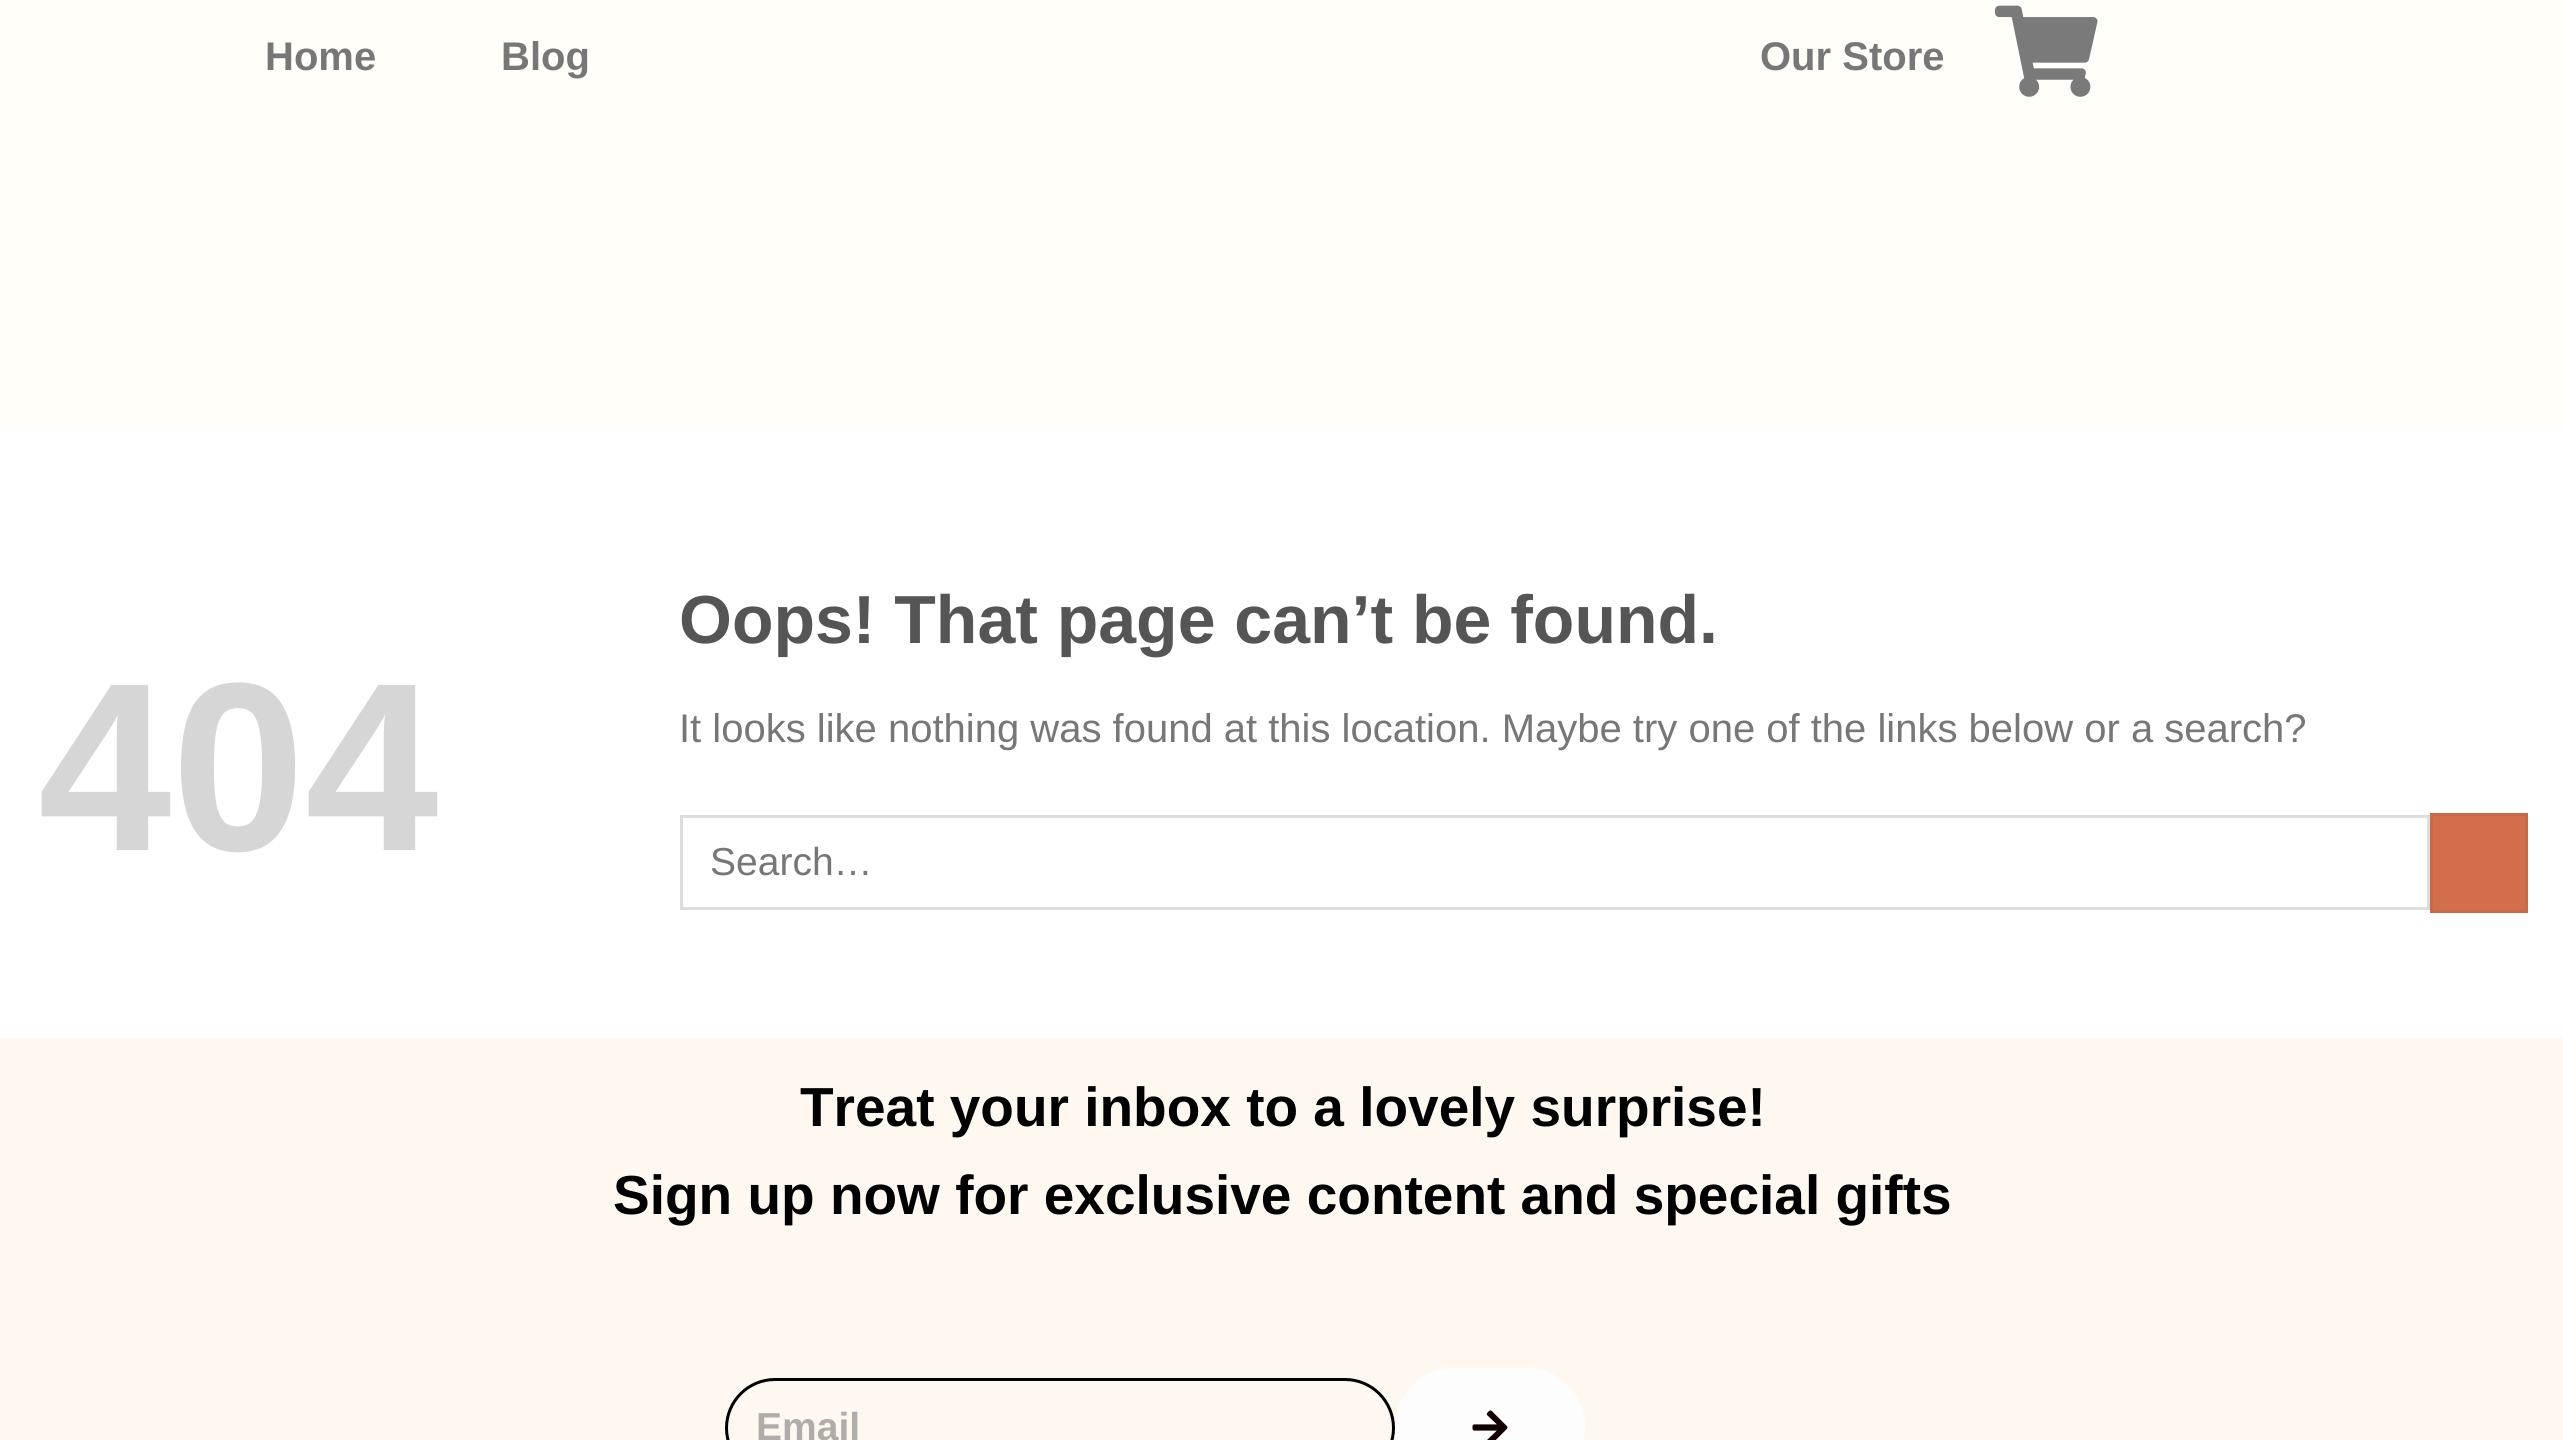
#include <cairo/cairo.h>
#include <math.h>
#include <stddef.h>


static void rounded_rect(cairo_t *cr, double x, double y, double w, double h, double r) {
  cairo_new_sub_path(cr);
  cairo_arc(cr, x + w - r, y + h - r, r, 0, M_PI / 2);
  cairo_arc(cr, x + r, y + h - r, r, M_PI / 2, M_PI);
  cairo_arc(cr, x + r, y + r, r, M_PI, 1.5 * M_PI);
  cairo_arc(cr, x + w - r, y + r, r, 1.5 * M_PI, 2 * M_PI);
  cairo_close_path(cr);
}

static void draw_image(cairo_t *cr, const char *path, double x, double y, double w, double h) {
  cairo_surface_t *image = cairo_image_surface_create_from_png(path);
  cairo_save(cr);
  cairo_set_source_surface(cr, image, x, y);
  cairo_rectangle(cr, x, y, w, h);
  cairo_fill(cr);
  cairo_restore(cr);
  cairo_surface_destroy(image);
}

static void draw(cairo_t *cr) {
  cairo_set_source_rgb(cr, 1, 254 / 255.0, 249 / 255.0);
  cairo_paint(cr);
  draw_image(cr, "images/1.png", 1995, 5, 103, 92);
  cairo_set_source_rgb(cr, 1, 1, 1);
  cairo_rectangle(cr, 0, 425, 2563, 613);
  cairo_fill(cr);
  cairo_rectangle(cr, 681.5, 816.5, 1747, 92);
  cairo_set_source_rgb(cr, 221 / 255.0, 221 / 255.0, 221 / 255.0);
  cairo_set_line_width(cr, 3);
  cairo_stroke(cr);
  cairo_set_source_rgb(cr, 210 / 255.0, 110 / 255.0, 75 / 255.0);
  cairo_rectangle(cr, 2431.5, 814.5, 95, 97);
  cairo_fill_preserve(cr);
  cairo_set_source_rgb(cr, 200 / 255.0, 105 / 255.0, 71 / 255.0);
  cairo_stroke(cr);
  cairo_set_source_rgb(cr, 1, 248 / 255.0, 240 / 255.0);
  cairo_rectangle(cr, 0, 1038, 2563, 402);
  cairo_fill(cr);
  rounded_rect(cr, 726.5, 1379.5, 667, 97, 48.5);
  cairo_set_source_rgb(cr, 0, 0, 0);
  cairo_stroke(cr);
  cairo_set_source_rgb(cr, 253 / 255.0, 253 / 255.0, 253 / 255.0);
  rounded_rect(cr, 1395, 1368, 190, 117, 58.5);
  cairo_fill(cr);
  draw_image(cr, "images/2.png", 1472, 1410, 36, 30);
  cairo_select_font_face(cr, "Liberation Sans", CAIRO_FONT_SLANT_NORMAL, CAIRO_FONT_WEIGHT_BOLD);
  cairo_set_font_size(cr, 40);
  cairo_set_source_rgb(cr, 119 / 255.0, 119 / 255.0, 119 / 255.0);
  cairo_move_to(cr, 265, 70);
  cairo_show_text(cr, "Home");
  cairo_move_to(cr, 501, 70);
  cairo_show_text(cr, "Blog");
  cairo_move_to(cr, 1760, 70);
  cairo_show_text(cr, "Our Store");
  cairo_set_font_size(cr, 240);
  cairo_set_source_rgb(cr, 214 / 255.0, 214 / 255.0, 214 / 255.0);
  cairo_move_to(cr, 38, 850);
  cairo_show_text(cr, "404");
  cairo_set_font_size(cr, 68);
  cairo_set_source_rgb(cr, 85 / 255.0, 85 / 255.0, 85 / 255.0);
  cairo_move_to(cr, 679, 643);
  cairo_show_text(cr, "Oops! That page can’t be found.");
  cairo_select_font_face(cr, "Liberation Sans", CAIRO_FONT_SLANT_NORMAL, CAIRO_FONT_WEIGHT_NORMAL);
  cairo_set_font_size(cr, 40);
  cairo_set_source_rgb(cr, 119 / 255.0, 119 / 255.0, 119 / 255.0);
  cairo_move_to(cr, 679, 742);
  cairo_show_text(cr, "It looks like nothing was found at this location. Maybe try one of the links below or a search?");
  cairo_set_font_size(cr, 39);
  cairo_move_to(cr, 710, 875);
  cairo_show_text(cr, "Search…");
  cairo_select_font_face(cr, "Liberation Sans", CAIRO_FONT_SLANT_NORMAL, CAIRO_FONT_WEIGHT_BOLD);
  cairo_set_font_size(cr, 55);
  cairo_set_source_rgb(cr, 0, 0, 0);
  cairo_move_to(cr, 800, 1126);
  cairo_show_text(cr, "Treat your inbox to a lovely surprise!");
  cairo_move_to(cr, 613, 1214);
  cairo_show_text(cr, "Sign up now for exclusive content and special gifts");
  cairo_set_font_size(cr, 39);
  cairo_set_source_rgb(cr, 175 / 255.0, 172 / 255.0, 169 / 255.0);
  cairo_move_to(cr, 756, 1440);
  cairo_show_text(cr, "Email");
}

int main(void) {
  cairo_surface_t *surface = cairo_image_surface_create(CAIRO_FORMAT_RGB24, 2563, 1440);
  cairo_t *cr = cairo_create(surface);
  cairo_font_options_t *options = cairo_font_options_create();
  cairo_font_options_set_hint_metrics(options, CAIRO_HINT_METRICS_OFF);
  cairo_font_options_set_hint_style(options, CAIRO_HINT_STYLE_NONE);
  cairo_set_font_options(cr, options);
  cairo_set_miter_limit(cr, 4);
  draw(cr);
  cairo_surface_write_to_png(surface, "out.png");
  cairo_font_options_destroy(options);
  cairo_destroy(cr);
  cairo_surface_destroy(surface);
  return 0;
}
